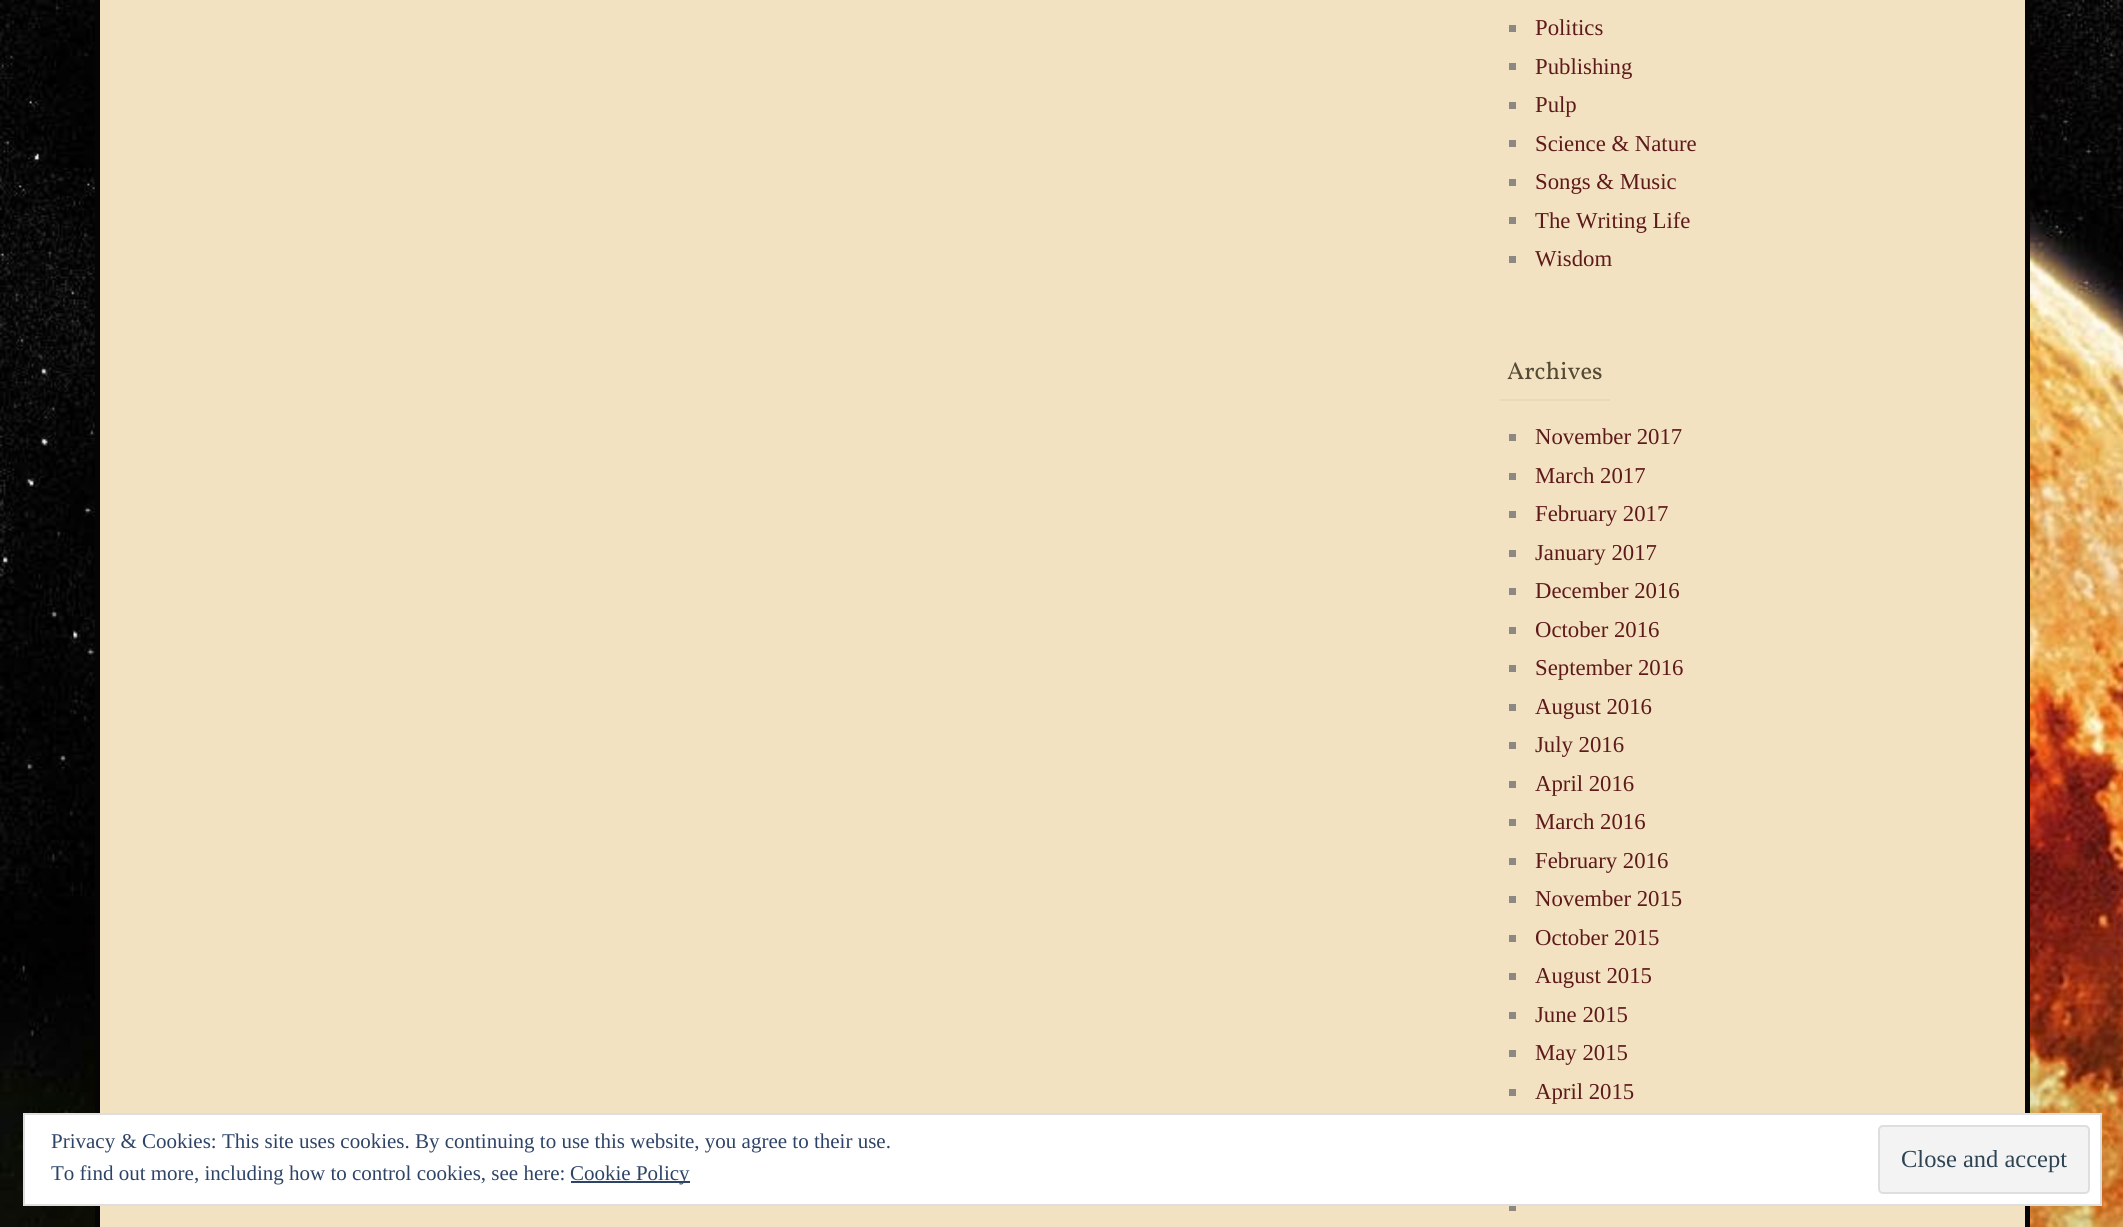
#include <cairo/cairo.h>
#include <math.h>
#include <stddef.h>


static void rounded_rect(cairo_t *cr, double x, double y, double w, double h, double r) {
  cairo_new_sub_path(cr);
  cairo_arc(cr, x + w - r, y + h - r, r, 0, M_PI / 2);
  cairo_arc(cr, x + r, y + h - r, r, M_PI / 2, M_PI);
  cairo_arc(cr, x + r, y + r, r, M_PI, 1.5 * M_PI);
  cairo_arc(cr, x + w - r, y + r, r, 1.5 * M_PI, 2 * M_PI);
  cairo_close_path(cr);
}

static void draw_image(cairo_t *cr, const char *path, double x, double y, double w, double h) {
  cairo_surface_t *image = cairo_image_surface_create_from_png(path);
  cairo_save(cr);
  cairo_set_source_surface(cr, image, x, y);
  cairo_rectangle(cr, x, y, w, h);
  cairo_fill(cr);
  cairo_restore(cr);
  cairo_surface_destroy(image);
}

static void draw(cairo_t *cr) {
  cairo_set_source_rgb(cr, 1, 1, 1);
  cairo_paint(cr);
  draw_image(cr, "images/1.png", 0, 0, 2123, 1227);
  cairo_set_source_rgb(cr, 242 / 255.0, 226 / 255.0, 193 / 255.0);
  cairo_rectangle(cr, 97.5, -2.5, 1930, 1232);
  cairo_fill_preserve(cr);
  cairo_set_source_rgb(cr, 5 / 255.0, 5 / 255.0, 5 / 255.0);
  cairo_set_line_width(cr, 5);
  cairo_stroke(cr);
  cairo_set_source_rgb(cr, 141 / 255.0, 136 / 255.0, 129 / 255.0);
  cairo_rectangle(cr, 1509, 25, 7, 7);
  cairo_fill(cr);
  cairo_rectangle(cr, 1509, 63, 7, 7);
  cairo_fill(cr);
  cairo_rectangle(cr, 1509, 102, 7, 7);
  cairo_fill(cr);
  cairo_rectangle(cr, 1509, 140, 7, 7);
  cairo_fill(cr);
  cairo_rectangle(cr, 1509, 179, 7, 7);
  cairo_fill(cr);
  cairo_rectangle(cr, 1509, 217, 7, 7);
  cairo_fill(cr);
  cairo_rectangle(cr, 1509, 256, 7, 7);
  cairo_fill(cr);
  cairo_set_source_rgb(cr, 231 / 255.0, 217 / 255.0, 185 / 255.0);
  cairo_rectangle(cr, 1500, 399, 110, 2);
  cairo_fill(cr);
  cairo_set_source_rgb(cr, 141 / 255.0, 136 / 255.0, 129 / 255.0);
  cairo_rectangle(cr, 1509, 434, 7, 7);
  cairo_fill(cr);
  cairo_rectangle(cr, 1509, 473, 7, 7);
  cairo_fill(cr);
  cairo_rectangle(cr, 1509, 511, 7, 7);
  cairo_fill(cr);
  cairo_rectangle(cr, 1509, 550, 7, 7);
  cairo_fill(cr);
  cairo_rectangle(cr, 1509, 588, 7, 7);
  cairo_fill(cr);
  cairo_rectangle(cr, 1509, 627, 7, 7);
  cairo_fill(cr);
  cairo_rectangle(cr, 1509, 665, 7, 7);
  cairo_fill(cr);
  cairo_rectangle(cr, 1509, 704, 7, 7);
  cairo_fill(cr);
  cairo_rectangle(cr, 1509, 742, 7, 7);
  cairo_fill(cr);
  cairo_rectangle(cr, 1509, 781, 7, 7);
  cairo_fill(cr);
  cairo_rectangle(cr, 1509, 819, 7, 7);
  cairo_fill(cr);
  cairo_rectangle(cr, 1509, 858, 7, 7);
  cairo_fill(cr);
  cairo_rectangle(cr, 1509, 896, 7, 7);
  cairo_fill(cr);
  cairo_rectangle(cr, 1509, 935, 7, 7);
  cairo_fill(cr);
  cairo_rectangle(cr, 1509, 973, 7, 7);
  cairo_fill(cr);
  cairo_rectangle(cr, 1509, 1012, 7, 7);
  cairo_fill(cr);
  cairo_rectangle(cr, 1509, 1050, 7, 7);
  cairo_fill(cr);
  cairo_rectangle(cr, 1509, 1089, 7, 7);
  cairo_fill(cr);
  cairo_rectangle(cr, 1509, 1206, 7, 5);
  cairo_fill(cr);
  cairo_set_source_rgb(cr, 1, 1, 1);
  cairo_rectangle(cr, 24, 1114, 2077, 91);
  cairo_fill_preserve(cr);
  cairo_set_source_rgb(cr, 222 / 255.0, 222 / 255.0, 222 / 255.0);
  cairo_set_line_width(cr, 2);
  cairo_stroke(cr);
  cairo_set_source_rgb(cr, 243 / 255.0, 243 / 255.0, 243 / 255.0);
  rounded_rect(cr, 1879, 1126, 210, 67, 4);
  cairo_fill_preserve(cr);
  cairo_set_source_rgb(cr, 222 / 255.0, 222 / 255.0, 222 / 255.0);
  cairo_stroke(cr);
  cairo_set_source_rgb(cr, 46 / 255.0, 68 / 255.0, 103 / 255.0);
  cairo_rectangle(cr, 571, 1181, 119, 2);
  cairo_fill(cr);
  cairo_select_font_face(cr, "Liberation Serif", CAIRO_FONT_SLANT_NORMAL, CAIRO_FONT_WEIGHT_NORMAL);
  cairo_set_font_size(cr, 22.75);
  cairo_set_source_rgb(cr, 94 / 255.0, 25 / 255.0, 26 / 255.0);
  cairo_move_to(cr, 1535, 35);
  cairo_show_text(cr, "Politics");
  cairo_move_to(cr, 1535, 74);
  cairo_show_text(cr, "Publishing");
  cairo_move_to(cr, 1535, 112);
  cairo_show_text(cr, "Pulp");
  cairo_move_to(cr, 1535, 151);
  cairo_show_text(cr, "Science & Nature");
  cairo_move_to(cr, 1535, 189);
  cairo_show_text(cr, "Songs & Music");
  cairo_move_to(cr, 1535, 228);
  cairo_show_text(cr, "The Writing Life");
  cairo_move_to(cr, 1535, 266);
  cairo_show_text(cr, "Wisdom");
  cairo_select_font_face(cr, "Vollkorn", CAIRO_FONT_SLANT_NORMAL, CAIRO_FONT_WEIGHT_NORMAL);
  cairo_set_font_size(cr, 24.5);
  cairo_set_source_rgb(cr, 85 / 255.0, 75 / 255.0, 52 / 255.0);
  cairo_move_to(cr, 1507, 379);
  cairo_show_text(cr, "Archives");
  cairo_select_font_face(cr, "Liberation Serif", CAIRO_FONT_SLANT_NORMAL, CAIRO_FONT_WEIGHT_NORMAL);
  cairo_set_font_size(cr, 22.75);
  cairo_set_source_rgb(cr, 94 / 255.0, 25 / 255.0, 26 / 255.0);
  cairo_move_to(cr, 1535, 444);
  cairo_show_text(cr, "November 2017");
  cairo_move_to(cr, 1535, 483);
  cairo_show_text(cr, "March 2017");
  cairo_move_to(cr, 1535, 521);
  cairo_show_text(cr, "February 2017");
  cairo_move_to(cr, 1535, 560);
  cairo_show_text(cr, "January 2017");
  cairo_move_to(cr, 1535, 598);
  cairo_show_text(cr, "December 2016");
  cairo_move_to(cr, 1535, 637);
  cairo_show_text(cr, "October 2016");
  cairo_move_to(cr, 1535, 675);
  cairo_show_text(cr, "September 2016");
  cairo_move_to(cr, 1535, 714);
  cairo_show_text(cr, "August 2016");
  cairo_move_to(cr, 1535, 752);
  cairo_show_text(cr, "July 2016");
  cairo_move_to(cr, 1535, 791);
  cairo_show_text(cr, "April 2016");
  cairo_move_to(cr, 1535, 829);
  cairo_show_text(cr, "March 2016");
  cairo_move_to(cr, 1535, 868);
  cairo_show_text(cr, "February 2016");
  cairo_move_to(cr, 1535, 906);
  cairo_show_text(cr, "November 2015");
  cairo_move_to(cr, 1535, 945);
  cairo_show_text(cr, "October 2015");
  cairo_move_to(cr, 1535, 983);
  cairo_show_text(cr, "August 2015");
  cairo_move_to(cr, 1535, 1022);
  cairo_show_text(cr, "June 2015");
  cairo_move_to(cr, 1535, 1060);
  cairo_show_text(cr, "May 2015");
  cairo_move_to(cr, 1535, 1099);
  cairo_show_text(cr, "April 2015");
  cairo_set_font_size(cr, 21);
  cairo_set_source_rgb(cr, 46 / 255.0, 68 / 255.0, 103 / 255.0);
  cairo_move_to(cr, 51, 1148);
  cairo_show_text(cr, "Privacy & Cookies: This site uses cookies. By continuing to use this website, you agree to their use.");
  cairo_set_font_size(cr, 24.5);
  cairo_set_source_rgb(cr, 46 / 255.0, 68 / 255.0, 83 / 255.0);
  cairo_move_to(cr, 1901, 1167);
  cairo_show_text(cr, "Close and accept");
  cairo_set_font_size(cr, 21);
  cairo_set_source_rgb(cr, 46 / 255.0, 68 / 255.0, 103 / 255.0);
  cairo_move_to(cr, 51, 1180);
  cairo_show_text(cr, "To find out more, including how to control cookies, see here:");
  cairo_move_to(cr, 570, 1180);
  cairo_show_text(cr, "Cookie Policy");
}

int main(void) {
  cairo_surface_t *surface = cairo_image_surface_create(CAIRO_FORMAT_RGB24, 2123, 1227);
  cairo_t *cr = cairo_create(surface);
  cairo_font_options_t *options = cairo_font_options_create();
  cairo_font_options_set_hint_metrics(options, CAIRO_HINT_METRICS_OFF);
  cairo_font_options_set_hint_style(options, CAIRO_HINT_STYLE_NONE);
  cairo_set_font_options(cr, options);
  cairo_set_miter_limit(cr, 4);
  draw(cr);
  cairo_surface_write_to_png(surface, "out.png");
  cairo_font_options_destroy(options);
  cairo_destroy(cr);
  cairo_surface_destroy(surface);
  return 0;
}
